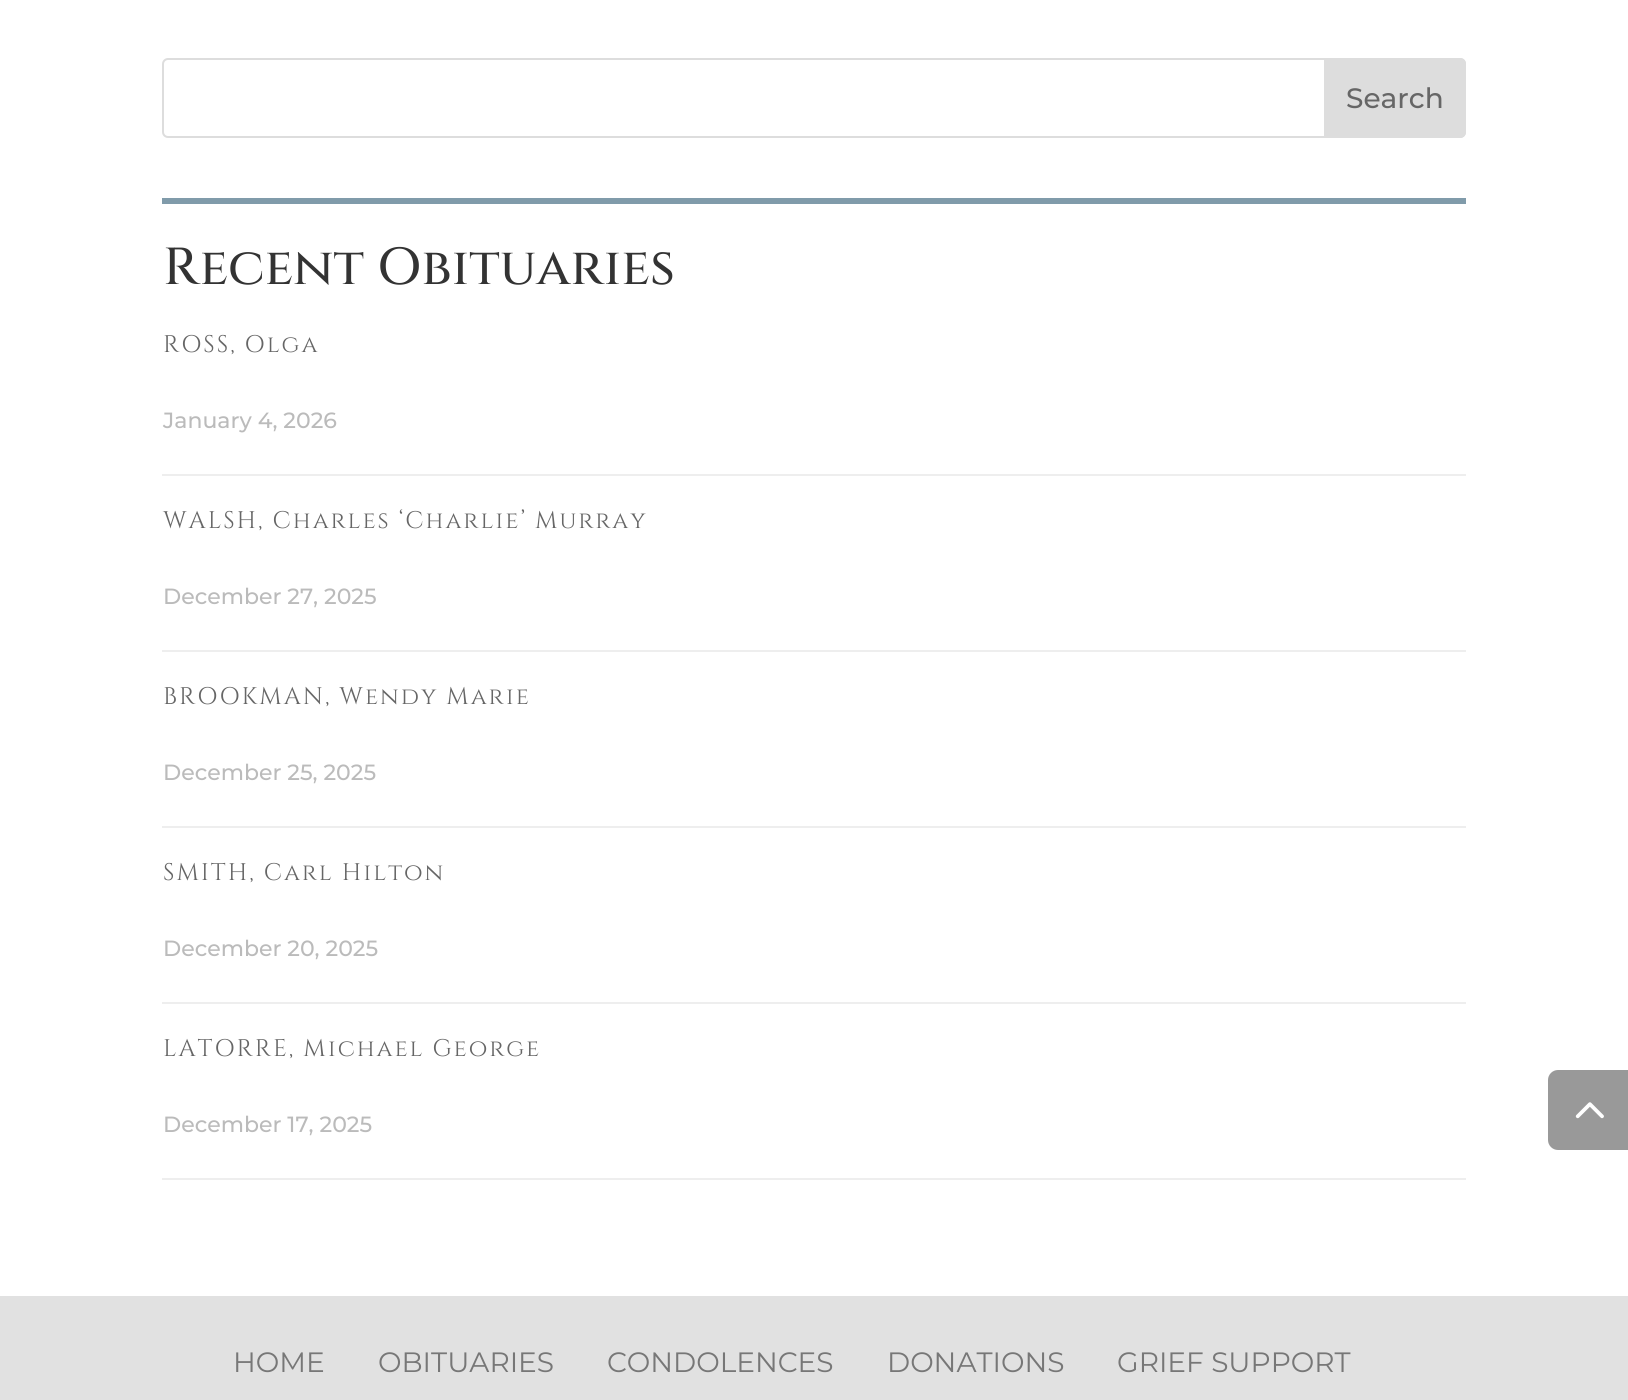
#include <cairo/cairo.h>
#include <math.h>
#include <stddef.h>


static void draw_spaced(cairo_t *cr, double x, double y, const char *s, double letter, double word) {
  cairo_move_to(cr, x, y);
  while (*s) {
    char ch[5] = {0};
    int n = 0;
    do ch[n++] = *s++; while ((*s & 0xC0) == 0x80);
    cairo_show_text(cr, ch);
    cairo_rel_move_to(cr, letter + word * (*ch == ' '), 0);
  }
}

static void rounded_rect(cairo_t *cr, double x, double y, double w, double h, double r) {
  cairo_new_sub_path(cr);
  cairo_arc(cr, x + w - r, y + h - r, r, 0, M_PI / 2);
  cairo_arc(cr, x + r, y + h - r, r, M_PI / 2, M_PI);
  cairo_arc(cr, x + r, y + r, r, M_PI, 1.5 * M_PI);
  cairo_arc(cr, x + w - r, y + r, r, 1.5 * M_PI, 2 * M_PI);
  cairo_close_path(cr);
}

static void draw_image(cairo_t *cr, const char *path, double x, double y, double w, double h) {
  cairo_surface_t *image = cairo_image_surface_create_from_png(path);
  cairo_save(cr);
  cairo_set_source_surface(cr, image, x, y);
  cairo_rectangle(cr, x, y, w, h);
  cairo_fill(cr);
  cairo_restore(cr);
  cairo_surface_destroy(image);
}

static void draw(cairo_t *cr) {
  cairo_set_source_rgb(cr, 1, 1, 1);
  cairo_paint(cr);
  rounded_rect(cr, 163, 59, 1302, 78, 5);
  cairo_set_source_rgb(cr, 221 / 255.0, 221 / 255.0, 221 / 255.0);
  cairo_stroke(cr);
  cairo_new_path(cr);
  cairo_move_to(cr, 1325, 59);
  cairo_line_to(cr, 1460, 59);
  cairo_curve_to(cr, 1463, 59, 1465, 61, 1465, 64);
  cairo_line_to(cr, 1465, 132);
  cairo_curve_to(cr, 1465, 135, 1463, 137, 1460, 137);
  cairo_line_to(cr, 1325, 137);
  cairo_close_path(cr);
  cairo_fill_preserve(cr);
  cairo_stroke(cr);
  cairo_set_source_rgb(cr, 128 / 255.0, 155 / 255.0, 170 / 255.0);
  cairo_rectangle(cr, 162, 198, 1304, 6);
  cairo_fill(cr);
  cairo_set_source_rgb(cr, 238 / 255.0, 238 / 255.0, 238 / 255.0);
  cairo_rectangle(cr, 162, 474, 1304, 2);
  cairo_fill(cr);
  cairo_rectangle(cr, 162, 650, 1304, 2);
  cairo_fill(cr);
  cairo_rectangle(cr, 162, 826, 1304, 2);
  cairo_fill(cr);
  cairo_rectangle(cr, 162, 1002, 1304, 2);
  cairo_fill(cr);
  cairo_rectangle(cr, 162, 1178, 1304, 2);
  cairo_fill(cr);
  cairo_set_source_rgb(cr, 153 / 255.0, 153 / 255.0, 153 / 255.0);
  cairo_new_path(cr);
  cairo_move_to(cr, 1558, 1070);
  cairo_line_to(cr, 1628, 1070);
  cairo_line_to(cr, 1628, 1150);
  cairo_line_to(cr, 1558, 1150);
  cairo_curve_to(cr, 1552.5, 1150, 1548, 1145.5, 1548, 1140);
  cairo_line_to(cr, 1548, 1080);
  cairo_curve_to(cr, 1548, 1074.5, 1552.5, 1070, 1558, 1070);
  cairo_close_path(cr);
  cairo_fill(cr);
  draw_image(cr, "images/1.png", 1575, 1102, 29, 17);
  cairo_set_source_rgb(cr, 225 / 255.0, 225 / 255.0, 225 / 255.0);
  cairo_rectangle(cr, 0, 1296, 1628, 104);
  cairo_fill(cr);
  cairo_select_font_face(cr, "Montserrat Medium", CAIRO_FONT_SLANT_NORMAL, CAIRO_FONT_WEIGHT_NORMAL);
  cairo_set_font_size(cr, 28);
  cairo_set_source_rgb(cr, 102 / 255.0, 102 / 255.0, 102 / 255.0);
  cairo_move_to(cr, 1346, 108);
  cairo_show_text(cr, "Search");
  cairo_select_font_face(cr, "Cinzel Medium", CAIRO_FONT_SLANT_NORMAL, CAIRO_FONT_WEIGHT_NORMAL);
  cairo_set_font_size(cr, 52);
  cairo_set_source_rgb(cr, 51 / 255.0, 51 / 255.0, 51 / 255.0);
  cairo_move_to(cr, 163, 284);
  cairo_show_text(cr, "Recent Obituaries");
  cairo_select_font_face(cr, "Cinzel", CAIRO_FONT_SLANT_NORMAL, CAIRO_FONT_WEIGHT_NORMAL);
  cairo_set_font_size(cr, 24);
  cairo_set_source_rgb(cr, 102 / 255.0, 102 / 255.0, 102 / 255.0);
  draw_spaced(cr, 163, 352, "ROSS, Olga", 2, 0);
  cairo_select_font_face(cr, "Montserrat Medium", CAIRO_FONT_SLANT_NORMAL, CAIRO_FONT_WEIGHT_NORMAL);
  cairo_set_font_size(cr, 22);
  cairo_set_source_rgb(cr, 187 / 255.0, 187 / 255.0, 187 / 255.0);
  cairo_move_to(cr, 163, 428);
  cairo_show_text(cr, "January 4, 2026");
  cairo_select_font_face(cr, "Cinzel", CAIRO_FONT_SLANT_NORMAL, CAIRO_FONT_WEIGHT_NORMAL);
  cairo_set_font_size(cr, 24);
  cairo_set_source_rgb(cr, 102 / 255.0, 102 / 255.0, 102 / 255.0);
  draw_spaced(cr, 163, 528, "WALSH, Charles ‘Charlie’ Murray", 2, 0);
  cairo_select_font_face(cr, "Montserrat Medium", CAIRO_FONT_SLANT_NORMAL, CAIRO_FONT_WEIGHT_NORMAL);
  cairo_set_font_size(cr, 22);
  cairo_set_source_rgb(cr, 187 / 255.0, 187 / 255.0, 187 / 255.0);
  cairo_move_to(cr, 163, 604);
  cairo_show_text(cr, "December 27, 2025");
  cairo_select_font_face(cr, "Cinzel", CAIRO_FONT_SLANT_NORMAL, CAIRO_FONT_WEIGHT_NORMAL);
  cairo_set_font_size(cr, 24);
  cairo_set_source_rgb(cr, 102 / 255.0, 102 / 255.0, 102 / 255.0);
  draw_spaced(cr, 163, 704, "BROOKMAN, Wendy Marie", 2, 0);
  cairo_select_font_face(cr, "Montserrat Medium", CAIRO_FONT_SLANT_NORMAL, CAIRO_FONT_WEIGHT_NORMAL);
  cairo_set_font_size(cr, 22);
  cairo_set_source_rgb(cr, 187 / 255.0, 187 / 255.0, 187 / 255.0);
  cairo_move_to(cr, 163, 780);
  cairo_show_text(cr, "December 25, 2025");
  cairo_select_font_face(cr, "Cinzel", CAIRO_FONT_SLANT_NORMAL, CAIRO_FONT_WEIGHT_NORMAL);
  cairo_set_font_size(cr, 24);
  cairo_set_source_rgb(cr, 102 / 255.0, 102 / 255.0, 102 / 255.0);
  draw_spaced(cr, 163, 880, "SMITH, Carl Hilton", 2, 0);
  cairo_select_font_face(cr, "Montserrat Medium", CAIRO_FONT_SLANT_NORMAL, CAIRO_FONT_WEIGHT_NORMAL);
  cairo_set_font_size(cr, 22);
  cairo_set_source_rgb(cr, 187 / 255.0, 187 / 255.0, 187 / 255.0);
  cairo_move_to(cr, 163, 956);
  cairo_show_text(cr, "December 20, 2025");
  cairo_select_font_face(cr, "Cinzel", CAIRO_FONT_SLANT_NORMAL, CAIRO_FONT_WEIGHT_NORMAL);
  cairo_set_font_size(cr, 24);
  cairo_set_source_rgb(cr, 102 / 255.0, 102 / 255.0, 102 / 255.0);
  draw_spaced(cr, 163, 1056, "LATORRE, Michael George", 2, 0);
  cairo_select_font_face(cr, "Montserrat Medium", CAIRO_FONT_SLANT_NORMAL, CAIRO_FONT_WEIGHT_NORMAL);
  cairo_set_font_size(cr, 22);
  cairo_set_source_rgb(cr, 187 / 255.0, 187 / 255.0, 187 / 255.0);
  cairo_move_to(cr, 163, 1132);
  cairo_show_text(cr, "December 17, 2025");
  cairo_select_font_face(cr, "Montserrat", CAIRO_FONT_SLANT_NORMAL, CAIRO_FONT_WEIGHT_NORMAL);
  cairo_set_font_size(cr, 28);
  cairo_set_source_rgb(cr, 119 / 255.0, 119 / 255.0, 119 / 255.0);
  cairo_move_to(cr, 233, 1372);
  cairo_show_text(cr, "HOME");
  cairo_move_to(cr, 378, 1372);
  cairo_show_text(cr, "OBITUARIES");
  cairo_move_to(cr, 607, 1372);
  cairo_show_text(cr, "CONDOLENCES");
  cairo_move_to(cr, 887, 1372);
  cairo_show_text(cr, "DONATIONS");
  cairo_move_to(cr, 1117, 1372);
  cairo_show_text(cr, "GRIEF SUPPORT");
}

int main(void) {
  cairo_surface_t *surface = cairo_image_surface_create(CAIRO_FORMAT_RGB24, 1628, 1400);
  cairo_t *cr = cairo_create(surface);
  cairo_font_options_t *options = cairo_font_options_create();
  cairo_font_options_set_hint_metrics(options, CAIRO_HINT_METRICS_OFF);
  cairo_font_options_set_hint_style(options, CAIRO_HINT_STYLE_NONE);
  cairo_set_font_options(cr, options);
  cairo_set_miter_limit(cr, 4);
  draw(cr);
  cairo_surface_write_to_png(surface, "out.png");
  cairo_font_options_destroy(options);
  cairo_destroy(cr);
  cairo_surface_destroy(surface);
  return 0;
}
